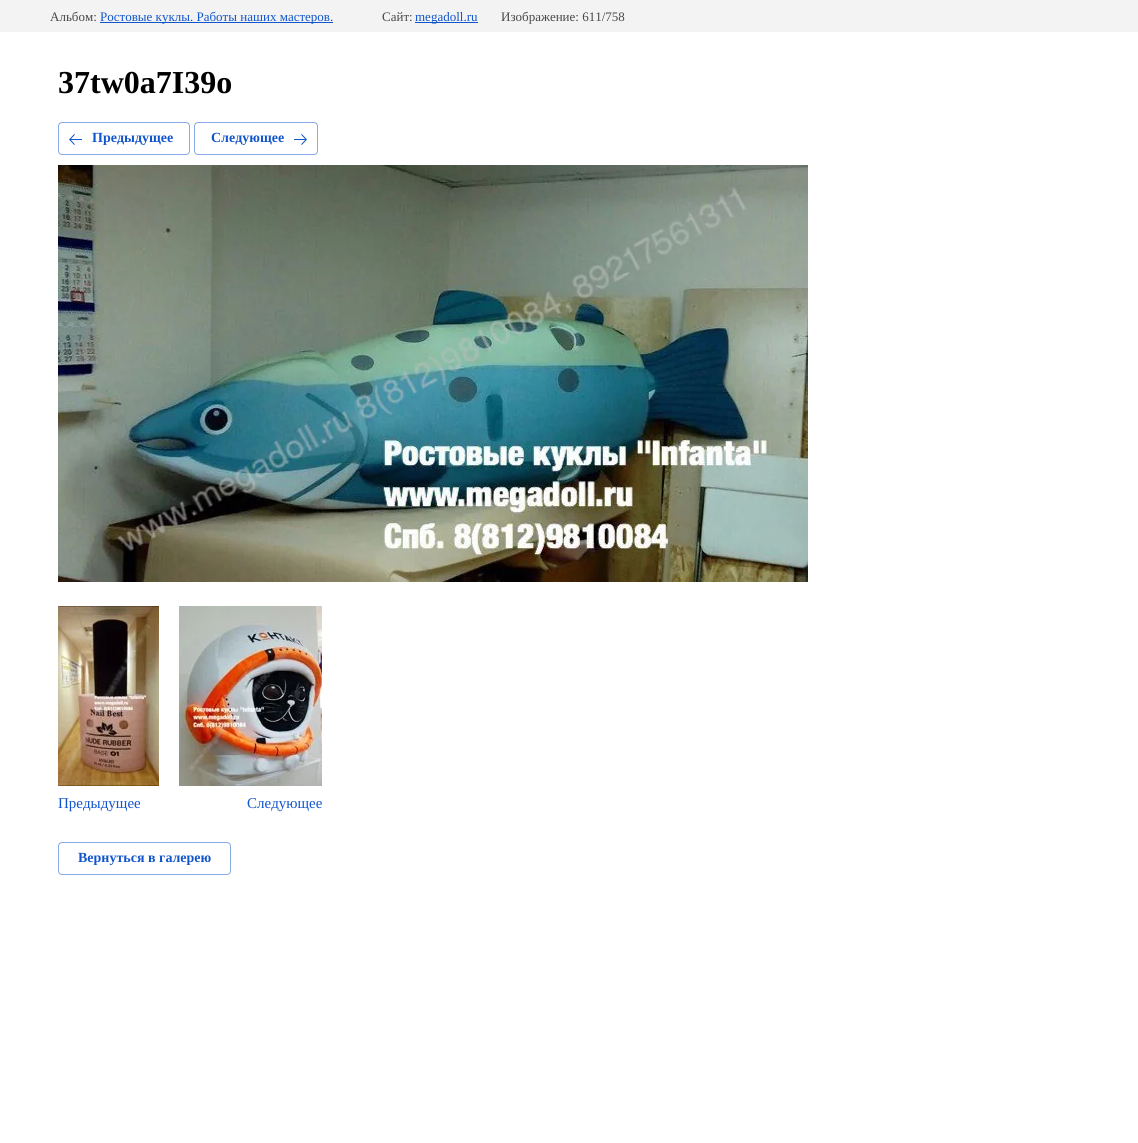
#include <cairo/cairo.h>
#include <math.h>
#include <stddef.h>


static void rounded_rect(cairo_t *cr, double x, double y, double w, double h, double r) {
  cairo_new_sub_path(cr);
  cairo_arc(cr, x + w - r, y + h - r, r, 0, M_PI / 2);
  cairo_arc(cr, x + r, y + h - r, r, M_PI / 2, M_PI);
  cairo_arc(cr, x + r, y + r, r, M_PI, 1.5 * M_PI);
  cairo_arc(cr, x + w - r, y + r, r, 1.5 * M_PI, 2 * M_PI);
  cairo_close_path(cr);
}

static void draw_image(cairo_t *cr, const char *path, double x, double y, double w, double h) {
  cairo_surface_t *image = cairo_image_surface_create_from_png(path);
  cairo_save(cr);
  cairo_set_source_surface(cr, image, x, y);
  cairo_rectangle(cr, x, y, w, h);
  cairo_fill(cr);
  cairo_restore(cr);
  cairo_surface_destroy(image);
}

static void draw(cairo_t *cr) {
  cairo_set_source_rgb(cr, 1, 1, 1);
  cairo_paint(cr);
  cairo_set_source_rgb(cr, 243 / 255.0, 243 / 255.0, 243 / 255.0);
  cairo_rectangle(cr, 0, 0, 1138, 32);
  cairo_fill(cr);
  cairo_set_source_rgb(cr, 17 / 255.0, 85 / 255.0, 204 / 255.0);
  cairo_rectangle(cr, 100, 22, 233, 1);
  cairo_fill(cr);
  cairo_rectangle(cr, 415, 22, 63, 1);
  cairo_fill(cr);
  rounded_rect(cr, 58.5, 122.5, 131, 32, 3.5);
  cairo_set_source_rgb(cr, 136 / 255.0, 170 / 255.0, 230 / 255.0);
  cairo_set_line_width(cr, 1);
  cairo_stroke(cr);
  draw_image(cr, "images/1.png", 69, 134, 13, 11);
  rounded_rect(cr, 194.5, 122.5, 123, 32, 3.5);
  cairo_stroke(cr);
  draw_image(cr, "images/2.png", 294, 134, 13, 11);
  draw_image(cr, "images/3.png", 58, 165, 750, 417);
  draw_image(cr, "images/4.png", 58, 606, 101, 180);
  draw_image(cr, "images/5.png", 179, 606, 143, 180);
  rounded_rect(cr, 58.5, 842.5, 172, 32, 3.5);
  cairo_stroke(cr);
  cairo_select_font_face(cr, "Liberation Serif", CAIRO_FONT_SLANT_NORMAL, CAIRO_FONT_WEIGHT_NORMAL);
  cairo_set_font_size(cr, 13);
  cairo_set_source_rgb(cr, 72 / 255.0, 72 / 255.0, 72 / 255.0);
  cairo_move_to(cr, 50, 21);
  cairo_show_text(cr, "Альбом:");
  cairo_set_source_rgb(cr, 17 / 255.0, 85 / 255.0, 204 / 255.0);
  cairo_move_to(cr, 100, 21);
  cairo_show_text(cr, "Ростовые куклы. Работы наших мастеров.");
  cairo_set_source_rgb(cr, 72 / 255.0, 72 / 255.0, 72 / 255.0);
  cairo_move_to(cr, 382, 21);
  cairo_show_text(cr, "Сайт:");
  cairo_set_source_rgb(cr, 17 / 255.0, 85 / 255.0, 204 / 255.0);
  cairo_move_to(cr, 415, 21);
  cairo_show_text(cr, "megadoll.ru");
  cairo_set_source_rgb(cr, 72 / 255.0, 72 / 255.0, 72 / 255.0);
  cairo_move_to(cr, 501, 21);
  cairo_show_text(cr, "Изображение: 611/758");
  cairo_select_font_face(cr, "Liberation Serif", CAIRO_FONT_SLANT_NORMAL, CAIRO_FONT_WEIGHT_BOLD);
  cairo_set_font_size(cr, 32);
  cairo_set_source_rgb(cr, 0, 0, 0);
  cairo_move_to(cr, 58, 93);
  cairo_show_text(cr, "37tw0a7I39o");
  cairo_set_font_size(cr, 14);
  cairo_set_source_rgb(cr, 17 / 255.0, 85 / 255.0, 204 / 255.0);
  cairo_move_to(cr, 92, 142);
  cairo_show_text(cr, "Предыдущее");
  cairo_move_to(cr, 211, 142);
  cairo_show_text(cr, "Следующее");
  cairo_select_font_face(cr, "Liberation Serif", CAIRO_FONT_SLANT_NORMAL, CAIRO_FONT_WEIGHT_NORMAL);
  cairo_set_font_size(cr, 15);
  cairo_move_to(cr, 58, 808);
  cairo_show_text(cr, "Предыдущее");
  cairo_move_to(cr, 247, 808);
  cairo_show_text(cr, "Следующее");
  cairo_select_font_face(cr, "Liberation Serif", CAIRO_FONT_SLANT_NORMAL, CAIRO_FONT_WEIGHT_BOLD);
  cairo_set_font_size(cr, 14);
  cairo_move_to(cr, 78, 862);
  cairo_show_text(cr, "Вернуться в галерею");
}

int main(void) {
  cairo_surface_t *surface = cairo_image_surface_create(CAIRO_FORMAT_RGB24, 1138, 1143);
  cairo_t *cr = cairo_create(surface);
  cairo_font_options_t *options = cairo_font_options_create();
  cairo_font_options_set_hint_metrics(options, CAIRO_HINT_METRICS_OFF);
  cairo_font_options_set_hint_style(options, CAIRO_HINT_STYLE_NONE);
  cairo_set_font_options(cr, options);
  cairo_set_miter_limit(cr, 4);
  draw(cr);
  cairo_surface_write_to_png(surface, "out.png");
  cairo_font_options_destroy(options);
  cairo_destroy(cr);
  cairo_surface_destroy(surface);
  return 0;
}
